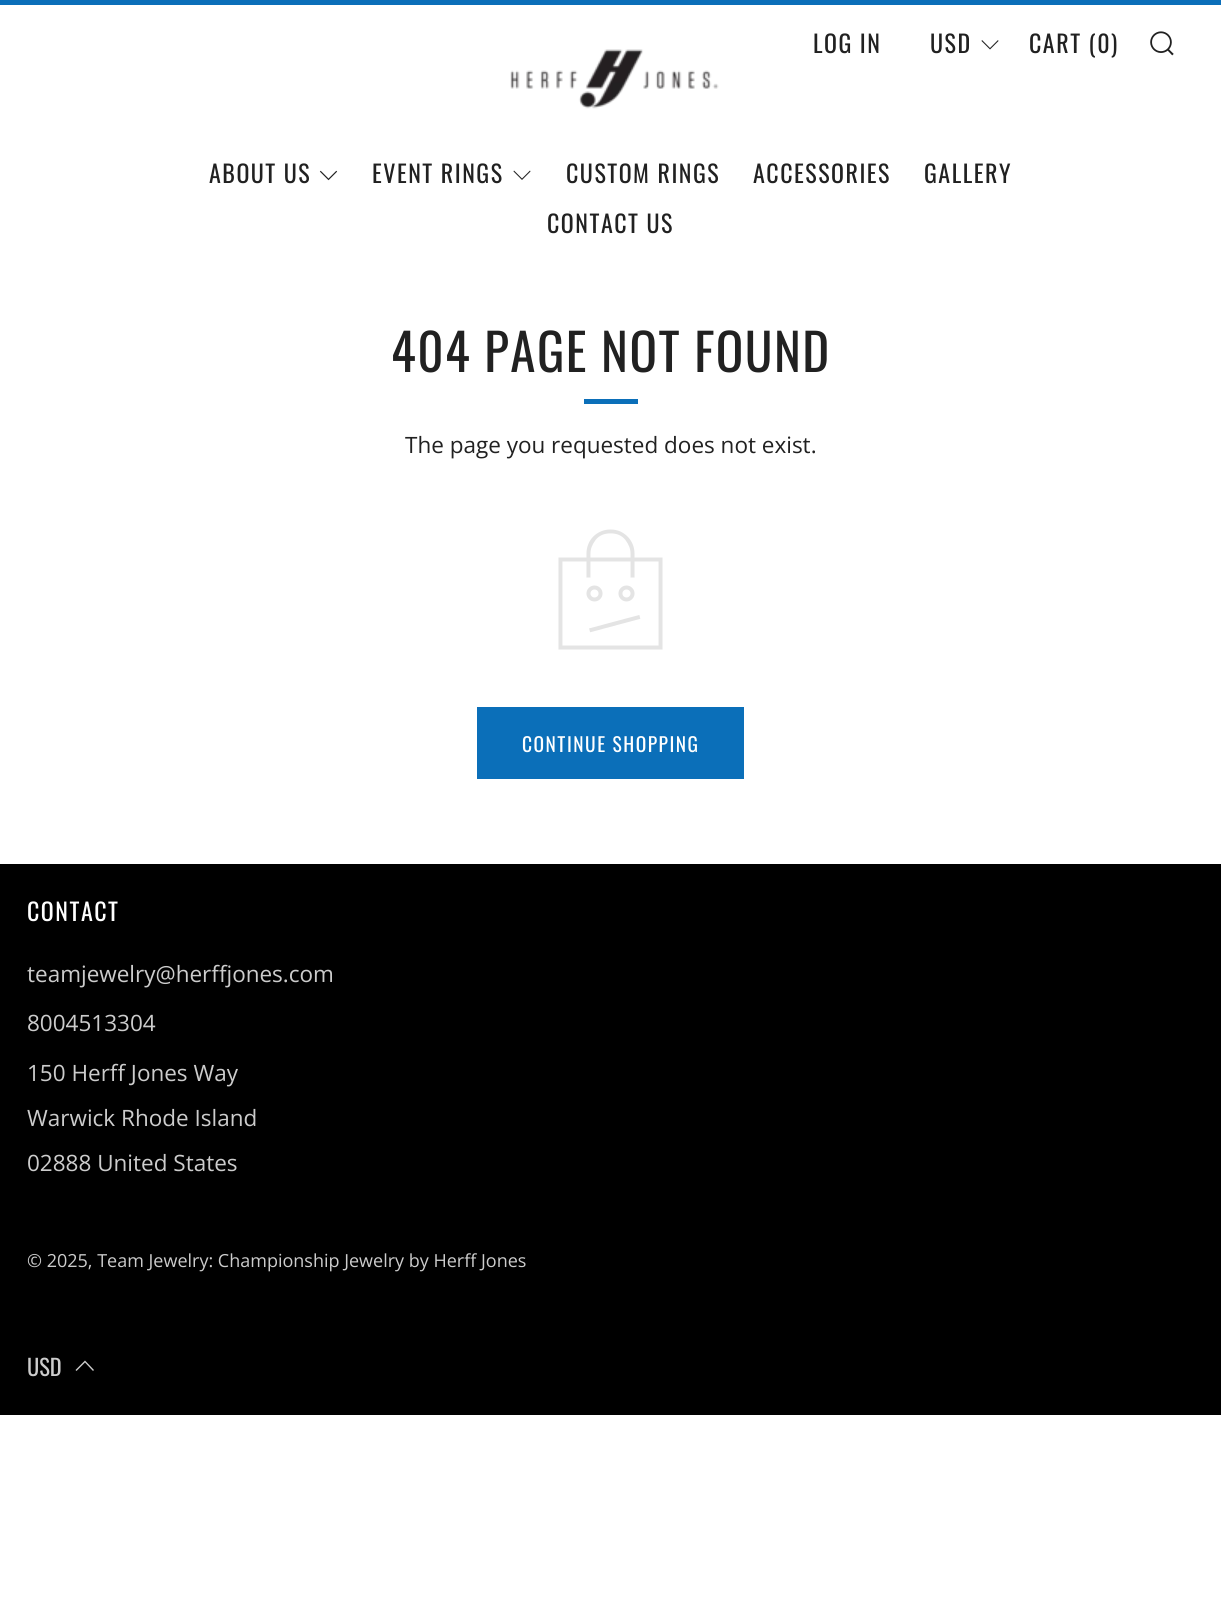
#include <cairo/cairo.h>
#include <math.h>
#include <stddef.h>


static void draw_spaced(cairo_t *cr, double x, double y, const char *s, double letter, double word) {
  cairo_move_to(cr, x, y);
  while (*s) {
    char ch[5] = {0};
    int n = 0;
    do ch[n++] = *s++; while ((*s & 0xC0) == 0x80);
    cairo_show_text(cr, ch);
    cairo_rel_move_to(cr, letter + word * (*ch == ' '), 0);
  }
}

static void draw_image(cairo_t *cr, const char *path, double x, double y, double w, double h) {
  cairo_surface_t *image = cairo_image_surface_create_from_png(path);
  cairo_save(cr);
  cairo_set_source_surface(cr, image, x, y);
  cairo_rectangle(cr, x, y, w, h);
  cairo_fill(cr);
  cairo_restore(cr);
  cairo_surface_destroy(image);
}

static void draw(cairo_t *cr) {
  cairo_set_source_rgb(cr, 1, 1, 1);
  cairo_paint(cr);
  cairo_set_source_rgb(cr, 11 / 255.0, 111 / 255.0, 185 / 255.0);
  cairo_rectangle(cr, 0, 0, 1221, 5);
  cairo_fill(cr);
  cairo_set_source_rgb(cr, 33 / 255.0, 33 / 255.0, 33 / 255.0);
  cairo_new_path(cr);
  cairo_move_to(cr, 982, 40);
  cairo_line_to(cr, 981.5, 41);
  cairo_line_to(cr, 990, 49.5);
  cairo_line_to(cr, 998.5, 41);
  cairo_line_to(cr, 998, 40);
  cairo_line_to(cr, 990, 48);
  cairo_close_path(cr);
  cairo_fill(cr);
  draw_image(cr, "images/1.png", 1150, 31, 24, 25);
  draw_image(cr, "images/2.png", 319, 170, 19, 11);
  cairo_new_path(cr);
  cairo_move_to(cr, 514, 170.5);
  cairo_line_to(cr, 513.5, 171.5);
  cairo_line_to(cr, 522, 180);
  cairo_line_to(cr, 530.5, 171.5);
  cairo_line_to(cr, 530, 170.5);
  cairo_line_to(cr, 522, 178.5);
  cairo_close_path(cr);
  cairo_fill(cr);
  draw_image(cr, "images/3.png", 510, 49, 209, 60);
  cairo_set_source_rgb(cr, 11 / 255.0, 111 / 255.0, 185 / 255.0);
  cairo_rectangle(cr, 584, 399, 54, 5);
  cairo_fill(cr);
  draw_image(cr, "images/4.png", 558, 529, 105, 121);
  cairo_rectangle(cr, 477, 707, 267, 72);
  cairo_fill(cr);
  cairo_set_source_rgb(cr, 0, 0, 0);
  cairo_rectangle(cr, 0, 864, 1221, 551);
  cairo_fill(cr);
  cairo_set_source_rgb(cr, 204 / 255.0, 204 / 255.0, 204 / 255.0);
  cairo_new_path(cr);
  cairo_move_to(cr, 76.5, 1371);
  cairo_line_to(cr, 75.5, 1370);
  cairo_line_to(cr, 85, 1360.5);
  cairo_line_to(cr, 94, 1370);
  cairo_line_to(cr, 93, 1371);
  cairo_line_to(cr, 85, 1362.5);
  cairo_close_path(cr);
  cairo_fill(cr);
  cairo_select_font_face(cr, "Oswald", CAIRO_FONT_SLANT_NORMAL, CAIRO_FONT_WEIGHT_NORMAL);
  cairo_set_font_size(cr, 24);
  cairo_set_source_rgb(cr, 33 / 255.0, 33 / 255.0, 33 / 255.0);
  draw_spaced(cr, 813, 53, "LOG IN", 1.5, 0);
  draw_spaced(cr, 930, 53, "USD", 1.5, 0);
  draw_spaced(cr, 1029, 53, "CART (0)", 1.5, 0);
  draw_spaced(cr, 209, 183, "ABOUT US", 1.5, 0);
  draw_spaced(cr, 372, 183, "EVENT RINGS", 1.5, 0);
  draw_spaced(cr, 566, 183, "CUSTOM RINGS", 1.5, 0);
  draw_spaced(cr, 753, 183, "ACCESSORIES", 1.5, 0);
  draw_spaced(cr, 924, 183, "GALLERY", 1.5, 0);
  draw_spaced(cr, 547, 233, "CONTACT US", 1.5, 0);
  cairo_set_font_size(cr, 51);
  draw_spaced(cr, 391, 372, "404 PAGE NOT FOUND", 1.5, 0);
  cairo_select_font_face(cr, "Open Sans", CAIRO_FONT_SLANT_NORMAL, CAIRO_FONT_WEIGHT_NORMAL);
  cairo_set_font_size(cr, 22.5);
  cairo_move_to(cr, 405, 453);
  cairo_show_text(cr, "The page you requested does not exist.");
  cairo_select_font_face(cr, "Oswald", CAIRO_FONT_SLANT_NORMAL, CAIRO_FONT_WEIGHT_NORMAL);
  cairo_set_font_size(cr, 19.5);
  cairo_set_source_rgb(cr, 1, 1, 1);
  draw_spaced(cr, 522, 752, "CONTINUE SHOPPING", 1.5, 0);
  cairo_set_font_size(cr, 24);
  draw_spaced(cr, 27, 921, "CONTACT", 1.5, 0);
  cairo_select_font_face(cr, "Open Sans", CAIRO_FONT_SLANT_NORMAL, CAIRO_FONT_WEIGHT_NORMAL);
  cairo_set_font_size(cr, 22.5);
  cairo_set_source_rgb(cr, 204 / 255.0, 204 / 255.0, 204 / 255.0);
  cairo_move_to(cr, 27, 982);
  cairo_show_text(cr, "teamjewelry@herffjones.com");
  cairo_move_to(cr, 27, 1031);
  cairo_show_text(cr, "8004513304");
  cairo_move_to(cr, 27, 1081);
  cairo_show_text(cr, "150 Herff Jones Way");
  cairo_move_to(cr, 27, 1126);
  cairo_show_text(cr, "Warwick Rhode Island");
  cairo_move_to(cr, 27, 1171);
  cairo_show_text(cr, "02888 United States");
  cairo_set_font_size(cr, 18);
  cairo_move_to(cr, 27, 1267);
  cairo_show_text(cr, "© 2025, Team Jewelry: Championship Jewelry by Herff Jones");
  cairo_select_font_face(cr, "Oswald", CAIRO_FONT_SLANT_NORMAL, CAIRO_FONT_WEIGHT_NORMAL);
  cairo_set_font_size(cr, 22.5);
  cairo_move_to(cr, 27, 1376);
  cairo_show_text(cr, "USD");
}

int main(void) {
  cairo_surface_t *surface = cairo_image_surface_create(CAIRO_FORMAT_RGB24, 1221, 1609);
  cairo_t *cr = cairo_create(surface);
  cairo_font_options_t *options = cairo_font_options_create();
  cairo_font_options_set_hint_metrics(options, CAIRO_HINT_METRICS_OFF);
  cairo_font_options_set_hint_style(options, CAIRO_HINT_STYLE_NONE);
  cairo_set_font_options(cr, options);
  cairo_set_miter_limit(cr, 4);
  draw(cr);
  cairo_surface_write_to_png(surface, "out.png");
  cairo_font_options_destroy(options);
  cairo_destroy(cr);
  cairo_surface_destroy(surface);
  return 0;
}
